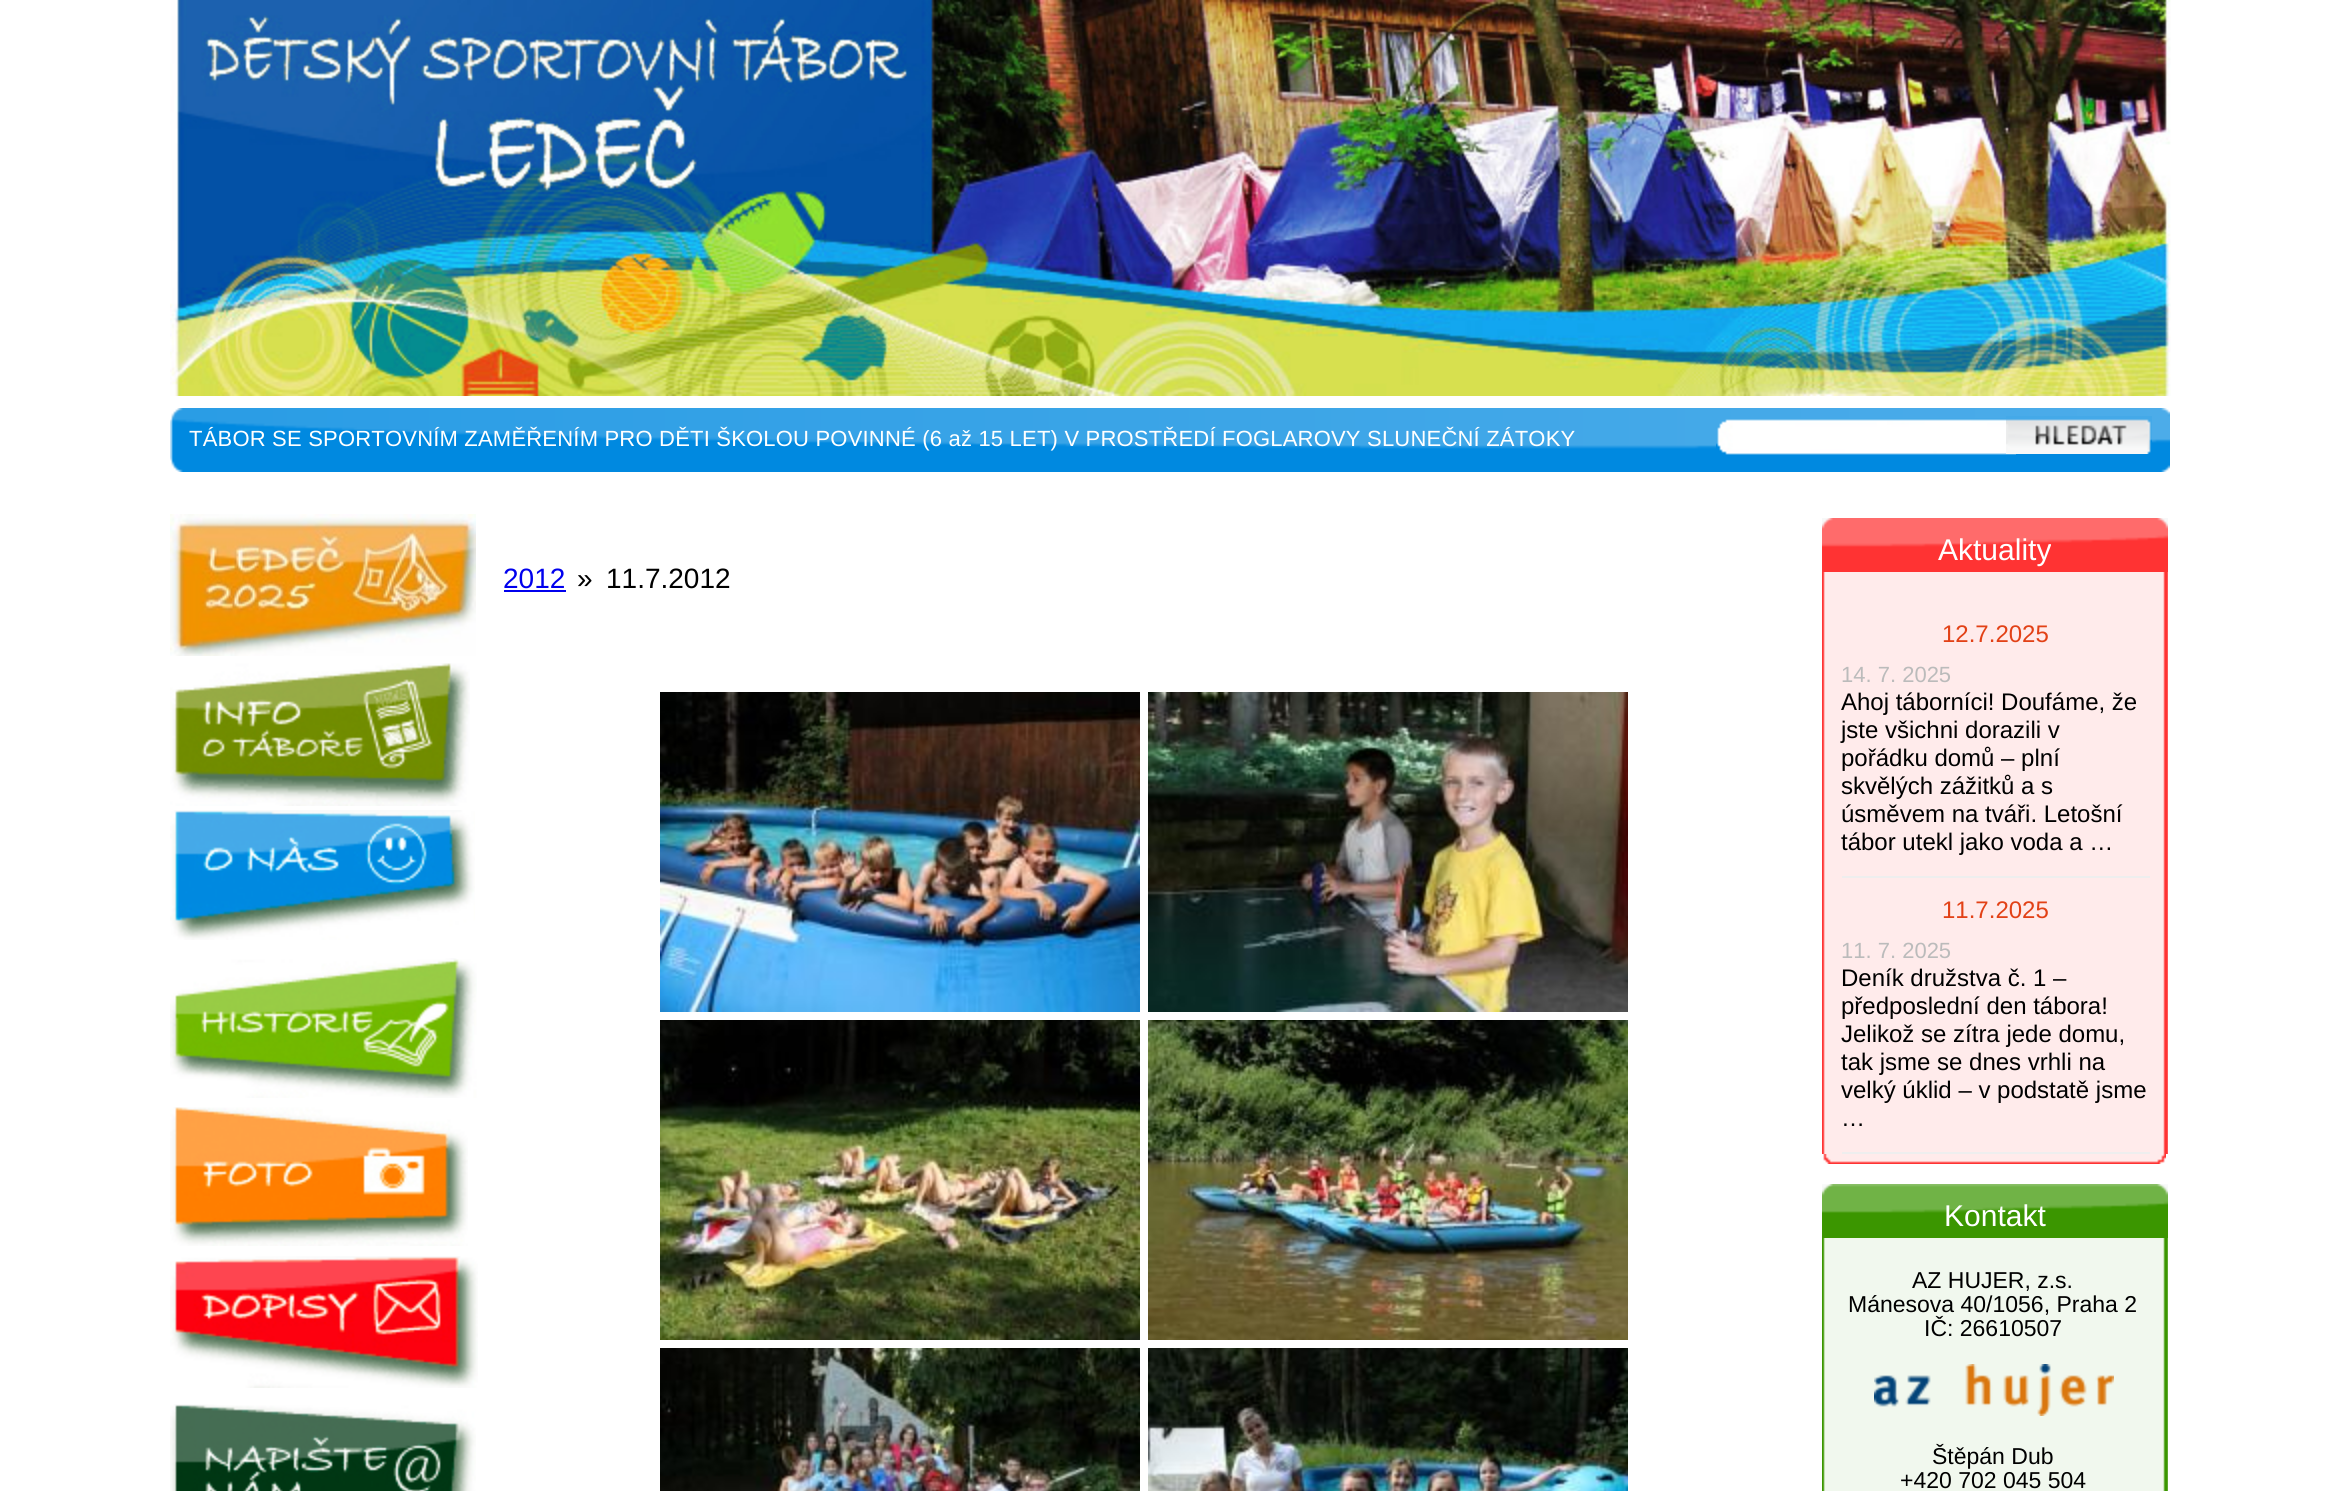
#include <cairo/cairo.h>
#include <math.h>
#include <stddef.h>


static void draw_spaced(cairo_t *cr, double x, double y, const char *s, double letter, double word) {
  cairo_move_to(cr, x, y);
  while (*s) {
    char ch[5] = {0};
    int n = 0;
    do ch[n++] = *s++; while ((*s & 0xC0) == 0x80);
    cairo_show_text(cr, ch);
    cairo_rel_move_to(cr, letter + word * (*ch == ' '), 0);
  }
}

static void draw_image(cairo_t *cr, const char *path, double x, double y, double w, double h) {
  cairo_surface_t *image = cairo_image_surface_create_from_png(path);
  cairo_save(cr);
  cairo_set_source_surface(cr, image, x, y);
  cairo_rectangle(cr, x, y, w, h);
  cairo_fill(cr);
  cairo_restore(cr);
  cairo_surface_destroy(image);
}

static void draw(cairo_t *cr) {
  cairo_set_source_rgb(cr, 1, 1, 1);
  cairo_paint(cr);
  draw_image(cr, "images/1.png", 170, 0, 2001, 396);
  draw_image(cr, "images/2.png", 170, 408, 2000, 64);
  draw_image(cr, "images/3.png", 1716, 418, 300, 37);
  draw_image(cr, "images/4.png", 2006, 416, 146, 38);
  draw_image(cr, "images/5.png", 170, 514, 306, 142);
  draw_image(cr, "images/6.png", 170, 663, 300, 143);
  draw_image(cr, "images/7.png", 170, 810, 305, 130);
  draw_image(cr, "images/8.png", 170, 958, 307, 140);
  draw_image(cr, "images/9.png", 170, 1107, 298, 139);
  draw_image(cr, "images/10.png", 170, 1256, 308, 132);
  draw_image(cr, "images/11.png", 170, 1404, 306, 87);
  cairo_set_source_rgb(cr, 0, 0, 238 / 255.0);
  cairo_rectangle(cr, 504, 590, 62, 2);
  cairo_fill(cr);
  draw_image(cr, "images/12.png", 660, 692, 480, 320);
  draw_image(cr, "images/13.png", 1148, 692, 480, 320);
  draw_image(cr, "images/14.png", 660, 1020, 480, 320);
  draw_image(cr, "images/15.png", 1148, 1020, 480, 320);
  draw_image(cr, "images/16.png", 660, 1348, 480, 143);
  draw_image(cr, "images/17.png", 1148, 1348, 480, 143);
  draw_image(cr, "images/18.png", 1822, 572, 346, 582);
  draw_image(cr, "images/19.png", 1822, 518, 346, 54);
  cairo_set_source_rgb(cr, 238 / 255.0, 238 / 255.0, 238 / 255.0);
  cairo_rectangle(cr, 1842, 876, 308, 2);
  cairo_fill(cr);
  cairo_rectangle(cr, 1842, 1152, 308, 2);
  cairo_fill(cr);
  draw_image(cr, "images/20.png", 1823, 1154, 343, 10);
  draw_image(cr, "images/21.png", 1822, 1238, 346, 253);
  draw_image(cr, "images/22.png", 1822, 1184, 346, 54);
  draw_image(cr, "images/23.png", 1874, 1364, 240, 52);
  cairo_select_font_face(cr, "Liberation Sans", CAIRO_FONT_SLANT_NORMAL, CAIRO_FONT_WEIGHT_NORMAL);
  cairo_set_font_size(cr, 22);
  cairo_set_source_rgb(cr, 1, 1, 1);
  draw_spaced(cr, 189, 446, "TÁBOR SE SPORTOVNÍM ZAMĚŘENÍM PRO DĚTI ŠKOLOU POVINNÉ (6 až 15 LET) V PROSTŘEDÍ FOGLAROVY SLUNEČNÍ ZÁTOKY", 0.2, 0);
  cairo_set_font_size(cr, 28);
  cairo_set_source_rgb(cr, 0, 0, 238 / 255.0);
  cairo_move_to(cr, 503, 588);
  cairo_show_text(cr, "2012");
  cairo_set_source_rgb(cr, 0, 0, 0);
  cairo_move_to(cr, 577, 588);
  cairo_show_text(cr, "»");
  cairo_move_to(cr, 606, 588);
  cairo_show_text(cr, "11.7.2012");
  cairo_set_font_size(cr, 30);
  cairo_set_source_rgb(cr, 1, 1, 1);
  cairo_move_to(cr, 1938, 560);
  cairo_show_text(cr, "Aktuality");
  cairo_set_font_size(cr, 24);
  cairo_set_source_rgb(cr, 226 / 255.0, 65 / 255.0, 22 / 255.0);
  cairo_move_to(cr, 1942, 642);
  cairo_show_text(cr, "12.7.2025");
  cairo_set_font_size(cr, 22);
  cairo_set_source_rgb(cr, 187 / 255.0, 187 / 255.0, 187 / 255.0);
  cairo_move_to(cr, 1841, 682);
  cairo_show_text(cr, "14. 7. 2025");
  cairo_set_font_size(cr, 24);
  cairo_set_source_rgb(cr, 0, 0, 0);
  cairo_move_to(cr, 1841, 710);
  cairo_show_text(cr, "Ahoj táborníci! Doufáme, že");
  cairo_move_to(cr, 1841, 738);
  cairo_show_text(cr, "jste všichni dorazili v");
  cairo_move_to(cr, 1841, 766);
  cairo_show_text(cr, "pořádku domů – plní");
  cairo_move_to(cr, 1841, 794);
  cairo_show_text(cr, "skvělých zážitků a s");
  cairo_move_to(cr, 1841, 822);
  cairo_show_text(cr, "úsměvem na tváři. Letošní");
  cairo_move_to(cr, 1841, 850);
  cairo_show_text(cr, "tábor utekl jako voda a …");
  cairo_set_source_rgb(cr, 226 / 255.0, 65 / 255.0, 22 / 255.0);
  cairo_move_to(cr, 1942, 918);
  cairo_show_text(cr, "11.7.2025");
  cairo_set_font_size(cr, 22);
  cairo_set_source_rgb(cr, 187 / 255.0, 187 / 255.0, 187 / 255.0);
  cairo_move_to(cr, 1841, 958);
  cairo_show_text(cr, "11. 7. 2025");
  cairo_set_font_size(cr, 24);
  cairo_set_source_rgb(cr, 0, 0, 0);
  cairo_move_to(cr, 1841, 986);
  cairo_show_text(cr, "Deník družstva č. 1 –");
  cairo_move_to(cr, 1841, 1014);
  cairo_show_text(cr, "předposlední den tábora!");
  cairo_move_to(cr, 1841, 1042);
  cairo_show_text(cr, "Jelikož se zítra jede domu,");
  cairo_move_to(cr, 1841, 1070);
  cairo_show_text(cr, "tak jsme se dnes vrhli na");
  cairo_move_to(cr, 1841, 1098);
  cairo_show_text(cr, "velký úklid – v podstatě jsme");
  cairo_move_to(cr, 1841, 1126);
  cairo_show_text(cr, "…");
  cairo_set_font_size(cr, 30);
  cairo_set_source_rgb(cr, 1, 1, 1);
  cairo_move_to(cr, 1944, 1226);
  cairo_show_text(cr, "Kontakt");
  cairo_set_font_size(cr, 23);
  cairo_set_source_rgb(cr, 0, 0, 0);
  cairo_move_to(cr, 1912, 1288);
  cairo_show_text(cr, "AZ HUJER, z.s.");
  cairo_move_to(cr, 1848, 1312);
  cairo_show_text(cr, "Mánesova 40/1056, Praha 2");
  cairo_move_to(cr, 1924, 1336);
  cairo_show_text(cr, "IČ: 26610507");
  cairo_move_to(cr, 1932, 1464);
  cairo_show_text(cr, "Štěpán Dub");
  cairo_move_to(cr, 1900, 1488);
  cairo_show_text(cr, "+420 702 045 504");
}

int main(void) {
  cairo_surface_t *surface = cairo_image_surface_create(CAIRO_FORMAT_RGB24, 2338, 1491);
  cairo_t *cr = cairo_create(surface);
  cairo_font_options_t *options = cairo_font_options_create();
  cairo_font_options_set_hint_metrics(options, CAIRO_HINT_METRICS_OFF);
  cairo_font_options_set_hint_style(options, CAIRO_HINT_STYLE_NONE);
  cairo_set_font_options(cr, options);
  cairo_set_miter_limit(cr, 4);
  draw(cr);
  cairo_surface_write_to_png(surface, "out.png");
  cairo_font_options_destroy(options);
  cairo_destroy(cr);
  cairo_surface_destroy(surface);
  return 0;
}
